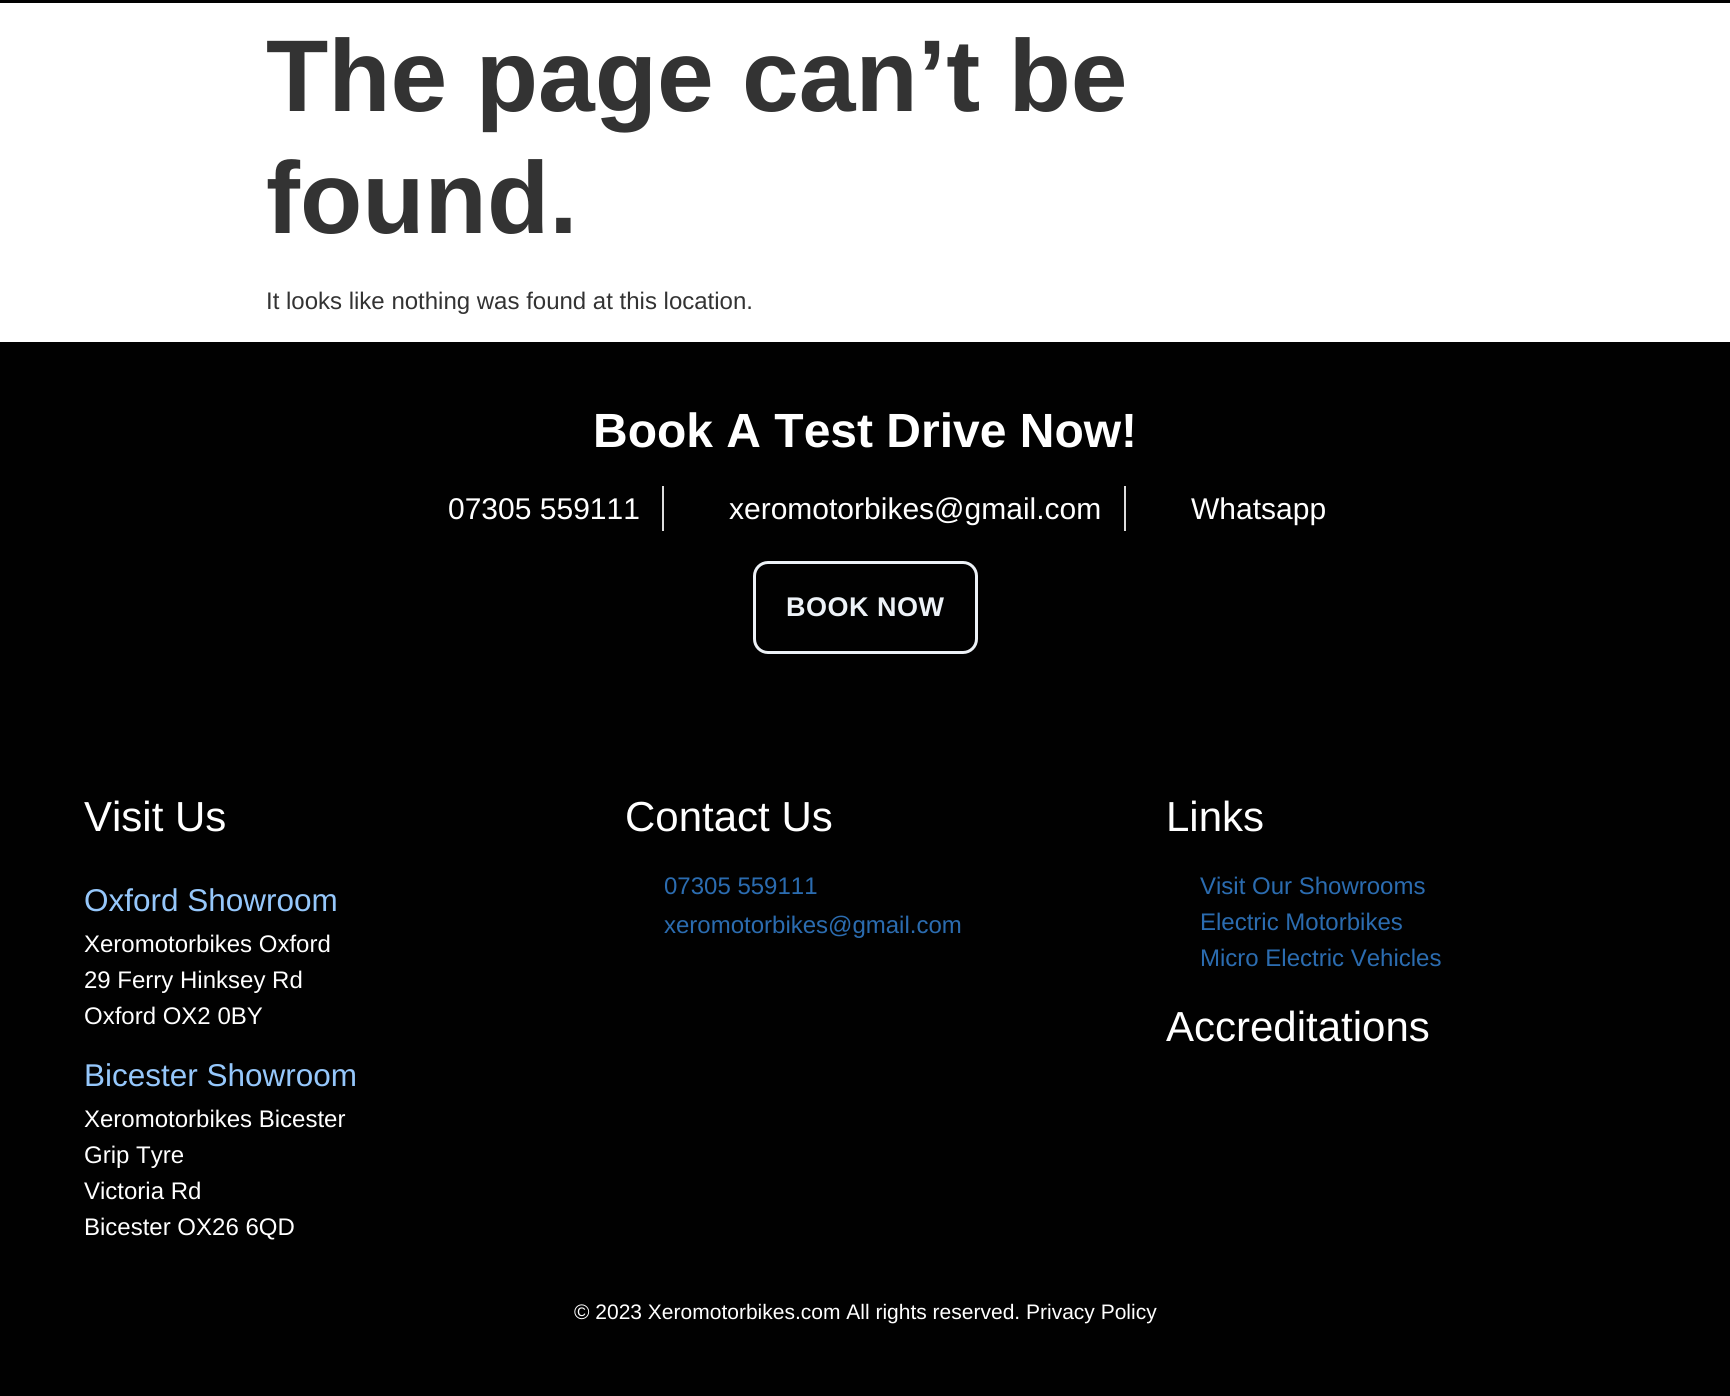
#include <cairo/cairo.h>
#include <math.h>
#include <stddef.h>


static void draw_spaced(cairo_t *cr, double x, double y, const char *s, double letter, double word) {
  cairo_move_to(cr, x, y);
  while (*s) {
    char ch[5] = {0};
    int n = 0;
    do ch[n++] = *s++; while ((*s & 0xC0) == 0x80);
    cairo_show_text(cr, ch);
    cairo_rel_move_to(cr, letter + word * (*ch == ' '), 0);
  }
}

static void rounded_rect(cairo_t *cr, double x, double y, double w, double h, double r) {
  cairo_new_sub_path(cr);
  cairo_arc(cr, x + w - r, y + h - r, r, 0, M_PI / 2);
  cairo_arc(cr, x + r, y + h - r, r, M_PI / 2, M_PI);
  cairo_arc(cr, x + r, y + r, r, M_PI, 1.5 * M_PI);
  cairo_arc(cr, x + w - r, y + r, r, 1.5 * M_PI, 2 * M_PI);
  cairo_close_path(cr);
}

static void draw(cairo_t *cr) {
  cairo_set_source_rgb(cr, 1, 1, 1);
  cairo_paint(cr);
  cairo_set_source_rgb(cr, 1 / 255.0, 1 / 255.0, 1 / 255.0);
  cairo_rectangle(cr, 0, 0, 1730, 3);
  cairo_fill(cr);
  cairo_rectangle(cr, 0, 342, 1730, 1054);
  cairo_fill(cr);
  cairo_set_source_rgb(cr, 221 / 255.0, 221 / 255.0, 221 / 255.0);
  cairo_rectangle(cr, 662, 486, 2, 45);
  cairo_fill(cr);
  cairo_rectangle(cr, 1124, 486, 2, 45);
  cairo_fill(cr);
  rounded_rect(cr, 754.5, 562.5, 222, 90, 13.5);
  cairo_set_source_rgb(cr, 237 / 255.0, 242 / 255.0, 247 / 255.0);
  cairo_set_line_width(cr, 3);
  cairo_stroke(cr);
  cairo_select_font_face(cr, "Liberation Sans", CAIRO_FONT_SLANT_NORMAL, CAIRO_FONT_WEIGHT_BOLD);
  cairo_set_font_size(cr, 102);
  cairo_set_source_rgb(cr, 51 / 255.0, 51 / 255.0, 51 / 255.0);
  cairo_move_to(cr, 266, 111);
  cairo_show_text(cr, "The page can’t be");
  cairo_move_to(cr, 266, 233);
  cairo_show_text(cr, "found.");
  cairo_select_font_face(cr, "Liberation Sans", CAIRO_FONT_SLANT_NORMAL, CAIRO_FONT_WEIGHT_NORMAL);
  cairo_set_font_size(cr, 24);
  cairo_move_to(cr, 266, 309);
  cairo_show_text(cr, "It looks like nothing was found at this location.");
  cairo_select_font_face(cr, "Liberation Sans", CAIRO_FONT_SLANT_NORMAL, CAIRO_FONT_WEIGHT_BOLD);
  cairo_set_font_size(cr, 48);
  cairo_set_source_rgb(cr, 1, 1, 1);
  cairo_move_to(cr, 593, 447);
  cairo_show_text(cr, "Book A Test Drive Now!");
  cairo_select_font_face(cr, "Liberation Sans", CAIRO_FONT_SLANT_NORMAL, CAIRO_FONT_WEIGHT_NORMAL);
  cairo_set_font_size(cr, 30);
  cairo_move_to(cr, 448, 519);
  cairo_show_text(cr, "07305 559111");
  cairo_move_to(cr, 729, 519);
  cairo_show_text(cr, "xeromotorbikes@gmail.com");
  cairo_move_to(cr, 1191, 519);
  cairo_show_text(cr, "Whatsapp");
  cairo_select_font_face(cr, "Liberation Sans", CAIRO_FONT_SLANT_NORMAL, CAIRO_FONT_WEIGHT_BOLD);
  cairo_set_font_size(cr, 27);
  cairo_set_source_rgb(cr, 237 / 255.0, 242 / 255.0, 247 / 255.0);
  draw_spaced(cr, 786, 616, "BOOK NOW", 0.5, 0);
  cairo_select_font_face(cr, "Liberation Sans", CAIRO_FONT_SLANT_NORMAL, CAIRO_FONT_WEIGHT_NORMAL);
  cairo_set_font_size(cr, 42);
  cairo_set_source_rgb(cr, 1, 1, 1);
  cairo_move_to(cr, 84, 831);
  cairo_show_text(cr, "Visit Us");
  cairo_set_font_size(cr, 31.5);
  cairo_set_source_rgb(cr, 149 / 255.0, 199 / 255.0, 251 / 255.0);
  cairo_move_to(cr, 84, 911);
  cairo_show_text(cr, "Oxford Showroom");
  cairo_set_font_size(cr, 24);
  cairo_set_source_rgb(cr, 1, 1, 1);
  cairo_move_to(cr, 84, 952);
  cairo_show_text(cr, "Xeromotorbikes Oxford");
  cairo_move_to(cr, 84, 988);
  cairo_show_text(cr, "29 Ferry Hinksey Rd");
  cairo_move_to(cr, 84, 1024);
  cairo_show_text(cr, "Oxford OX2 0BY");
  cairo_set_font_size(cr, 31.5);
  cairo_set_source_rgb(cr, 149 / 255.0, 199 / 255.0, 251 / 255.0);
  cairo_move_to(cr, 84, 1086);
  cairo_show_text(cr, "Bicester Showroom");
  cairo_set_font_size(cr, 24);
  cairo_set_source_rgb(cr, 1, 1, 1);
  cairo_move_to(cr, 84, 1127);
  cairo_show_text(cr, "Xeromotorbikes Bicester");
  cairo_move_to(cr, 84, 1163);
  cairo_show_text(cr, "Grip Tyre");
  cairo_move_to(cr, 84, 1199);
  cairo_show_text(cr, "Victoria Rd");
  cairo_move_to(cr, 84, 1235);
  cairo_show_text(cr, "Bicester OX26 6QD");
  cairo_set_font_size(cr, 42);
  cairo_move_to(cr, 625, 831);
  cairo_show_text(cr, "Contact Us");
  cairo_set_font_size(cr, 24);
  cairo_set_source_rgb(cr, 43 / 255.0, 108 / 255.0, 176 / 255.0);
  cairo_move_to(cr, 664, 894);
  cairo_show_text(cr, "07305 559111");
  cairo_move_to(cr, 664, 933);
  cairo_show_text(cr, "xeromotorbikes@gmail.com");
  cairo_set_font_size(cr, 42);
  cairo_set_source_rgb(cr, 1, 1, 1);
  cairo_move_to(cr, 1166, 831);
  cairo_show_text(cr, "Links");
  cairo_set_font_size(cr, 24);
  cairo_set_source_rgb(cr, 43 / 255.0, 108 / 255.0, 176 / 255.0);
  cairo_move_to(cr, 1200, 894);
  cairo_show_text(cr, "Visit Our Showrooms");
  cairo_move_to(cr, 1200, 930);
  cairo_show_text(cr, "Electric Motorbikes");
  cairo_move_to(cr, 1200, 966);
  cairo_show_text(cr, "Micro Electric Vehicles");
  cairo_set_font_size(cr, 42);
  cairo_set_source_rgb(cr, 1, 1, 1);
  cairo_move_to(cr, 1166, 1041);
  cairo_show_text(cr, "Accreditations");
  cairo_set_font_size(cr, 21);
  cairo_move_to(cr, 574, 1319);
  cairo_show_text(cr, "© 2023 Xeromotorbikes.com All rights reserved. Privacy Policy");
}

int main(void) {
  cairo_surface_t *surface = cairo_image_surface_create(CAIRO_FORMAT_RGB24, 1730, 1396);
  cairo_t *cr = cairo_create(surface);
  cairo_font_options_t *options = cairo_font_options_create();
  cairo_font_options_set_hint_metrics(options, CAIRO_HINT_METRICS_OFF);
  cairo_font_options_set_hint_style(options, CAIRO_HINT_STYLE_NONE);
  cairo_set_font_options(cr, options);
  cairo_set_miter_limit(cr, 4);
  draw(cr);
  cairo_surface_write_to_png(surface, "out.png");
  cairo_font_options_destroy(options);
  cairo_destroy(cr);
  cairo_surface_destroy(surface);
  return 0;
}
